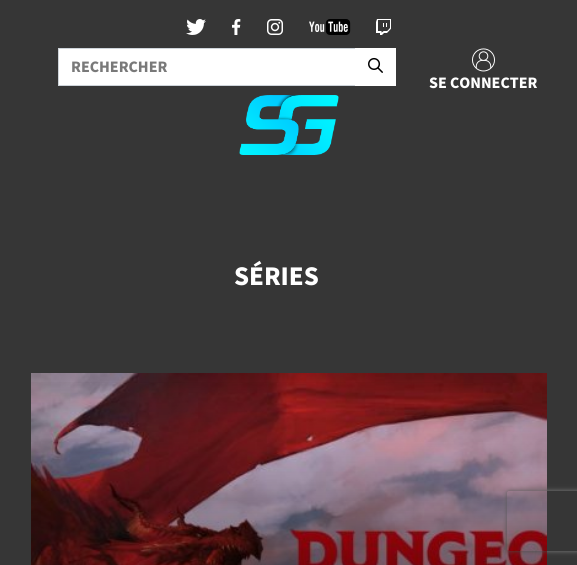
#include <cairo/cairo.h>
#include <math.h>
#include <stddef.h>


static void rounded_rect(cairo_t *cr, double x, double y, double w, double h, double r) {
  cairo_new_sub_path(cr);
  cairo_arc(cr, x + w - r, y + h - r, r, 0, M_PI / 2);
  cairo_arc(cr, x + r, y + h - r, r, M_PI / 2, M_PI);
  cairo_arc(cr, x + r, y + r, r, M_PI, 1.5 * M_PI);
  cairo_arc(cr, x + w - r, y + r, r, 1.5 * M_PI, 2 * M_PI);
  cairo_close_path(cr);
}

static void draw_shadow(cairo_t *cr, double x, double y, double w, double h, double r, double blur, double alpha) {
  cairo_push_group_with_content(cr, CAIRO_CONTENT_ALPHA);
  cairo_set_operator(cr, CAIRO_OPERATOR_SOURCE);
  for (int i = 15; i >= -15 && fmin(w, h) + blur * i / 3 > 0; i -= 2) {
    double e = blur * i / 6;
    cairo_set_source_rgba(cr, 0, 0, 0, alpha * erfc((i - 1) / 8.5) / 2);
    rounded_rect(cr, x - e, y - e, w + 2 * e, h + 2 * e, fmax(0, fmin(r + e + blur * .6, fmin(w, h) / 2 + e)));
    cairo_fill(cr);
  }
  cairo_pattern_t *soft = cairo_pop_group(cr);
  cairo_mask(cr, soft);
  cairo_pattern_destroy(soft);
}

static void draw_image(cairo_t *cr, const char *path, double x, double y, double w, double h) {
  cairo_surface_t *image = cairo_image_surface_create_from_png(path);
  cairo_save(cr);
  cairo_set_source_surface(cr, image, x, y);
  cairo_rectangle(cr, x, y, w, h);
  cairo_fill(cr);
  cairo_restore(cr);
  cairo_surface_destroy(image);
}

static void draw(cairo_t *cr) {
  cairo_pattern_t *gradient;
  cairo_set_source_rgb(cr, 54 / 255.0, 54 / 255.0, 54 / 255.0);
  cairo_paint(cr);
  draw_image(cr, "images/1.png", 186, 19, 20, 16);
  draw_image(cr, "images/2.png", 232, 19, 9, 16);
  draw_image(cr, "images/3.png", 267, 19, 16, 16);
  draw_image(cr, "images/4.png", 309, 21, 16, 11);
  draw_image(cr, "images/5.png", 325, 19, 26, 16);
  draw_image(cr, "images/6.png", 328, 21, 20, 11);
  draw_image(cr, "images/7.png", 376, 19, 15, 16);
  cairo_set_source_rgb(cr, 1, 1, 1);
  cairo_rectangle(cr, 58.5, 48.5, 297, 37);
  cairo_fill_preserve(cr);
  cairo_set_source_rgb(cr, 206 / 255.0, 212 / 255.0, 218 / 255.0);
  cairo_set_line_width(cr, 1);
  cairo_stroke(cr);
  cairo_set_source_rgb(cr, 1, 1, 1);
  cairo_rectangle(cr, 355, 48, 41, 38);
  cairo_fill(cr);
  draw_image(cr, "images/8.png", 368, 57, 15, 16);
  draw_image(cr, "images/9.png", 472, 48, 23, 24);
  draw_image(cr, "images/10.png", 239, 95, 100, 60);
  draw_image(cr, "images/11.png", 31, 373, 516, 192);
  cairo_save(cr);
  cairo_set_fill_rule(cr, CAIRO_FILL_RULE_EVEN_ODD);
  cairo_new_path(cr);
  cairo_move_to(cr, 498, 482);
  cairo_line_to(cr, 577, 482);
  cairo_line_to(cr, 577, 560);
  cairo_line_to(cr, 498, 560);
  cairo_close_path(cr);
  cairo_move_to(cr, 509, 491);
  cairo_line_to(cr, 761, 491);
  cairo_curve_to(cr, 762, 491, 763, 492, 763, 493);
  cairo_line_to(cr, 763, 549);
  cairo_curve_to(cr, 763, 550, 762, 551, 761, 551);
  cairo_line_to(cr, 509, 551);
  cairo_curve_to(cr, 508, 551, 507, 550, 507, 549);
  cairo_line_to(cr, 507, 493);
  cairo_curve_to(cr, 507, 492, 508, 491, 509, 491);
  cairo_close_path(cr);
  cairo_clip(cr);
  cairo_set_source_rgb(cr, 128 / 255.0, 128 / 255.0, 128 / 255.0);
  draw_shadow(cr, 507, 491, 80, 60, 2, 2.5, 1);
  cairo_restore(cr);
  gradient = cairo_pattern_create_linear(289, 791, 289, 373);
  cairo_pattern_add_color_stop_rgba(gradient, 0, 0, 0, 0, 1);
  cairo_pattern_add_color_stop_rgba(gradient, 1, 0, 0, 0, 0);
  cairo_set_source(cr, gradient);
  cairo_pattern_destroy(gradient);
  cairo_rectangle(cr, 31, 382, 516, 183);
  cairo_fill(cr);
  cairo_select_font_face(cr, "Source Sans Pro", CAIRO_FONT_SLANT_NORMAL, CAIRO_FONT_WEIGHT_BOLD);
  cairo_set_font_size(cr, 16);
  cairo_set_source_rgb(cr, 121 / 255.0, 121 / 255.0, 121 / 255.0);
  cairo_move_to(cr, 71, 72);
  cairo_show_text(cr, "RECHERCHER");
  cairo_set_source_rgb(cr, 1, 1, 1);
  cairo_move_to(cr, 429, 88);
  cairo_show_text(cr, "SE CONNECTER");
  cairo_set_font_size(cr, 27);
  cairo_move_to(cr, 234, 285);
  cairo_show_text(cr, "SÉRIES");
}

int main(void) {
  cairo_surface_t *surface = cairo_image_surface_create(CAIRO_FORMAT_RGB24, 577, 565);
  cairo_t *cr = cairo_create(surface);
  cairo_font_options_t *options = cairo_font_options_create();
  cairo_font_options_set_hint_metrics(options, CAIRO_HINT_METRICS_OFF);
  cairo_font_options_set_hint_style(options, CAIRO_HINT_STYLE_NONE);
  cairo_set_font_options(cr, options);
  cairo_set_miter_limit(cr, 4);
  draw(cr);
  cairo_surface_write_to_png(surface, "out.png");
  cairo_font_options_destroy(options);
  cairo_destroy(cr);
  cairo_surface_destroy(surface);
  return 0;
}
